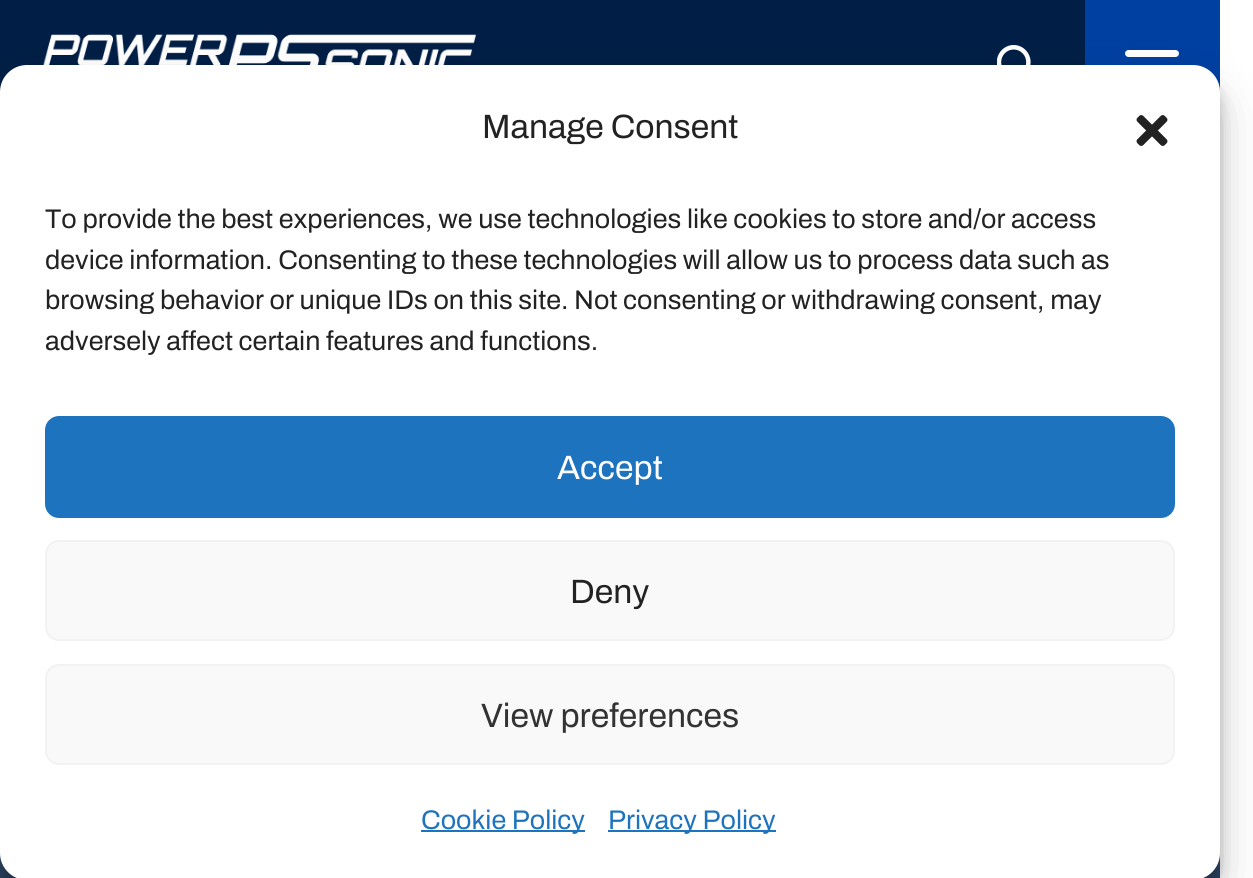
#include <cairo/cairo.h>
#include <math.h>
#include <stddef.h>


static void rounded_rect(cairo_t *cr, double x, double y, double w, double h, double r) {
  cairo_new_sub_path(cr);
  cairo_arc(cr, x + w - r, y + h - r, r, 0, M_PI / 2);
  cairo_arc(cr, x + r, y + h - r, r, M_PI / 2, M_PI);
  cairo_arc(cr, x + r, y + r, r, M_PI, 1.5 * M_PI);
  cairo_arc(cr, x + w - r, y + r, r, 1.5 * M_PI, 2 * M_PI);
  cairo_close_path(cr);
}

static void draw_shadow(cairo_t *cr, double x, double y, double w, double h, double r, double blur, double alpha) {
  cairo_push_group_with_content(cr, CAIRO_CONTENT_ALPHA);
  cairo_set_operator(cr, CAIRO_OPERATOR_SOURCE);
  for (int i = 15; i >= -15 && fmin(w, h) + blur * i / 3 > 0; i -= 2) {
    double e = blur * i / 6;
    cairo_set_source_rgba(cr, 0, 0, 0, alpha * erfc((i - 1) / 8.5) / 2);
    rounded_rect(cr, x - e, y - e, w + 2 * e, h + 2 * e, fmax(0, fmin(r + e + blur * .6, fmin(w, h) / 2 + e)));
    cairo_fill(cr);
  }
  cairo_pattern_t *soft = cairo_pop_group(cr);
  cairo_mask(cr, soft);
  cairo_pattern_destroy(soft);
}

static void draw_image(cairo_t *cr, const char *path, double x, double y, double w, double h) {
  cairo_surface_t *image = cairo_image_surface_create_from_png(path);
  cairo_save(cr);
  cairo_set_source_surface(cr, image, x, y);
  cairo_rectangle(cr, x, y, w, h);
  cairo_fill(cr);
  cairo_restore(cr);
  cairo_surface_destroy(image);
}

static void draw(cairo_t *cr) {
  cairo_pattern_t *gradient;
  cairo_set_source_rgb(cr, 1, 1, 1);
  cairo_paint(cr);
  cairo_set_source_rgb(cr, 1 / 255.0, 30 / 255.0, 70 / 255.0);
  cairo_rectangle(cr, 0, 0, 1085, 92);
  cairo_fill(cr);
  draw_image(cr, "images/1.png", 43, 34, 434, 31);
  draw_image(cr, "images/2.png", 997, 45, 34, 20);
  cairo_set_source_rgb(cr, 0, 64 / 255.0, 161 / 255.0);
  cairo_rectangle(cr, 1085, 0, 135, 92);
  cairo_fill(cr);
  cairo_set_source_rgb(cr, 1, 1, 1);
  rounded_rect(cr, 1125, 50, 54, 7, 3.5);
  cairo_fill(cr);
  gradient = cairo_pattern_create_linear(610, 135, 610, 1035);
  cairo_pattern_add_color_stop_rgba(gradient, 0, 1, 1, 1, 1);
  cairo_pattern_add_color_stop_rgba(gradient, 1, 1 / 255.0, 30 / 255.0, 70 / 255.0, 1);
  cairo_set_source(cr, gradient);
  cairo_pattern_destroy(gradient);
  cairo_rectangle(cr, 0, 853, 1220, 25);
  cairo_fill(cr);
  cairo_set_source_rgb(cr, 0, 0, 0);
  draw_shadow(cr, 0, 79, 1220, 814, 27, 7, 0.23);
  draw_shadow(cr, 0, 88, 1220, 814, 27, 22.5, 0.19);
  cairo_set_source_rgb(cr, 1, 1, 1);
  rounded_rect(cr, 0, 65, 1220, 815, 27);
  cairo_fill(cr);
  draw_image(cr, "images/3.png", 1136, 115, 32, 31);
  cairo_set_source_rgb(cr, 30 / 255.0, 115 / 255.0, 190 / 255.0);
  rounded_rect(cr, 46, 417, 1128, 100, 13);
  cairo_fill_preserve(cr);
  cairo_stroke(cr);
  cairo_set_source_rgb(cr, 249 / 255.0, 249 / 255.0, 249 / 255.0);
  rounded_rect(cr, 46, 541, 1128, 99, 13);
  cairo_fill_preserve(cr);
  cairo_set_source_rgb(cr, 242 / 255.0, 242 / 255.0, 242 / 255.0);
  cairo_stroke(cr);
  cairo_set_source_rgb(cr, 249 / 255.0, 249 / 255.0, 249 / 255.0);
  rounded_rect(cr, 46, 665, 1128, 99, 13);
  cairo_fill_preserve(cr);
  cairo_set_source_rgb(cr, 242 / 255.0, 242 / 255.0, 242 / 255.0);
  cairo_stroke(cr);
  cairo_set_source_rgb(cr, 30 / 255.0, 115 / 255.0, 190 / 255.0);
  cairo_rectangle(cr, 421, 830, 164, 2);
  cairo_fill(cr);
  cairo_rectangle(cr, 608, 830, 168, 2);
  cairo_fill(cr);
  cairo_select_font_face(cr, "Archivo SemiBold", CAIRO_FONT_SLANT_NORMAL, CAIRO_FONT_WEIGHT_NORMAL);
  cairo_set_font_size(cr, 33.75);
  cairo_set_source_rgb(cr, 34 / 255.0, 34 / 255.0, 34 / 255.0);
  cairo_move_to(cr, 482, 138);
  cairo_show_text(cr, "Manage Consent");
  cairo_set_font_size(cr, 27);
  cairo_move_to(cr, 45, 228);
  cairo_show_text(cr, "To provide the best experiences, we use technologies like cookies to store and/or access");
  cairo_move_to(cr, 45, 269);
  cairo_show_text(cr, "device information. Consenting to these technologies will allow us to process data such as");
  cairo_move_to(cr, 45, 309);
  cairo_show_text(cr, "browsing behavior or unique IDs on this site. Not consenting or withdrawing consent, may");
  cairo_move_to(cr, 45, 350);
  cairo_show_text(cr, "adversely affect certain features and functions.");
  cairo_set_font_size(cr, 33.75);
  cairo_set_source_rgb(cr, 1, 1, 1);
  cairo_move_to(cr, 557, 479);
  cairo_show_text(cr, "Accept");
  cairo_set_source_rgb(cr, 34 / 255.0, 34 / 255.0, 34 / 255.0);
  cairo_move_to(cr, 570, 603);
  cairo_show_text(cr, "Deny");
  cairo_set_source_rgb(cr, 51 / 255.0, 51 / 255.0, 51 / 255.0);
  cairo_move_to(cr, 481, 727);
  cairo_show_text(cr, "View preferences");
  cairo_set_font_size(cr, 27);
  cairo_set_source_rgb(cr, 30 / 255.0, 115 / 255.0, 190 / 255.0);
  cairo_move_to(cr, 421, 829);
  cairo_show_text(cr, "Cookie Policy");
  cairo_move_to(cr, 608, 829);
  cairo_show_text(cr, "Privacy Policy");
}

int main(void) {
  cairo_surface_t *surface = cairo_image_surface_create(CAIRO_FORMAT_RGB24, 1253, 878);
  cairo_t *cr = cairo_create(surface);
  cairo_font_options_t *options = cairo_font_options_create();
  cairo_font_options_set_hint_metrics(options, CAIRO_HINT_METRICS_OFF);
  cairo_font_options_set_hint_style(options, CAIRO_HINT_STYLE_NONE);
  cairo_set_font_options(cr, options);
  cairo_set_miter_limit(cr, 4);
  draw(cr);
  cairo_surface_write_to_png(surface, "out.png");
  cairo_font_options_destroy(options);
  cairo_destroy(cr);
  cairo_surface_destroy(surface);
  return 0;
}
